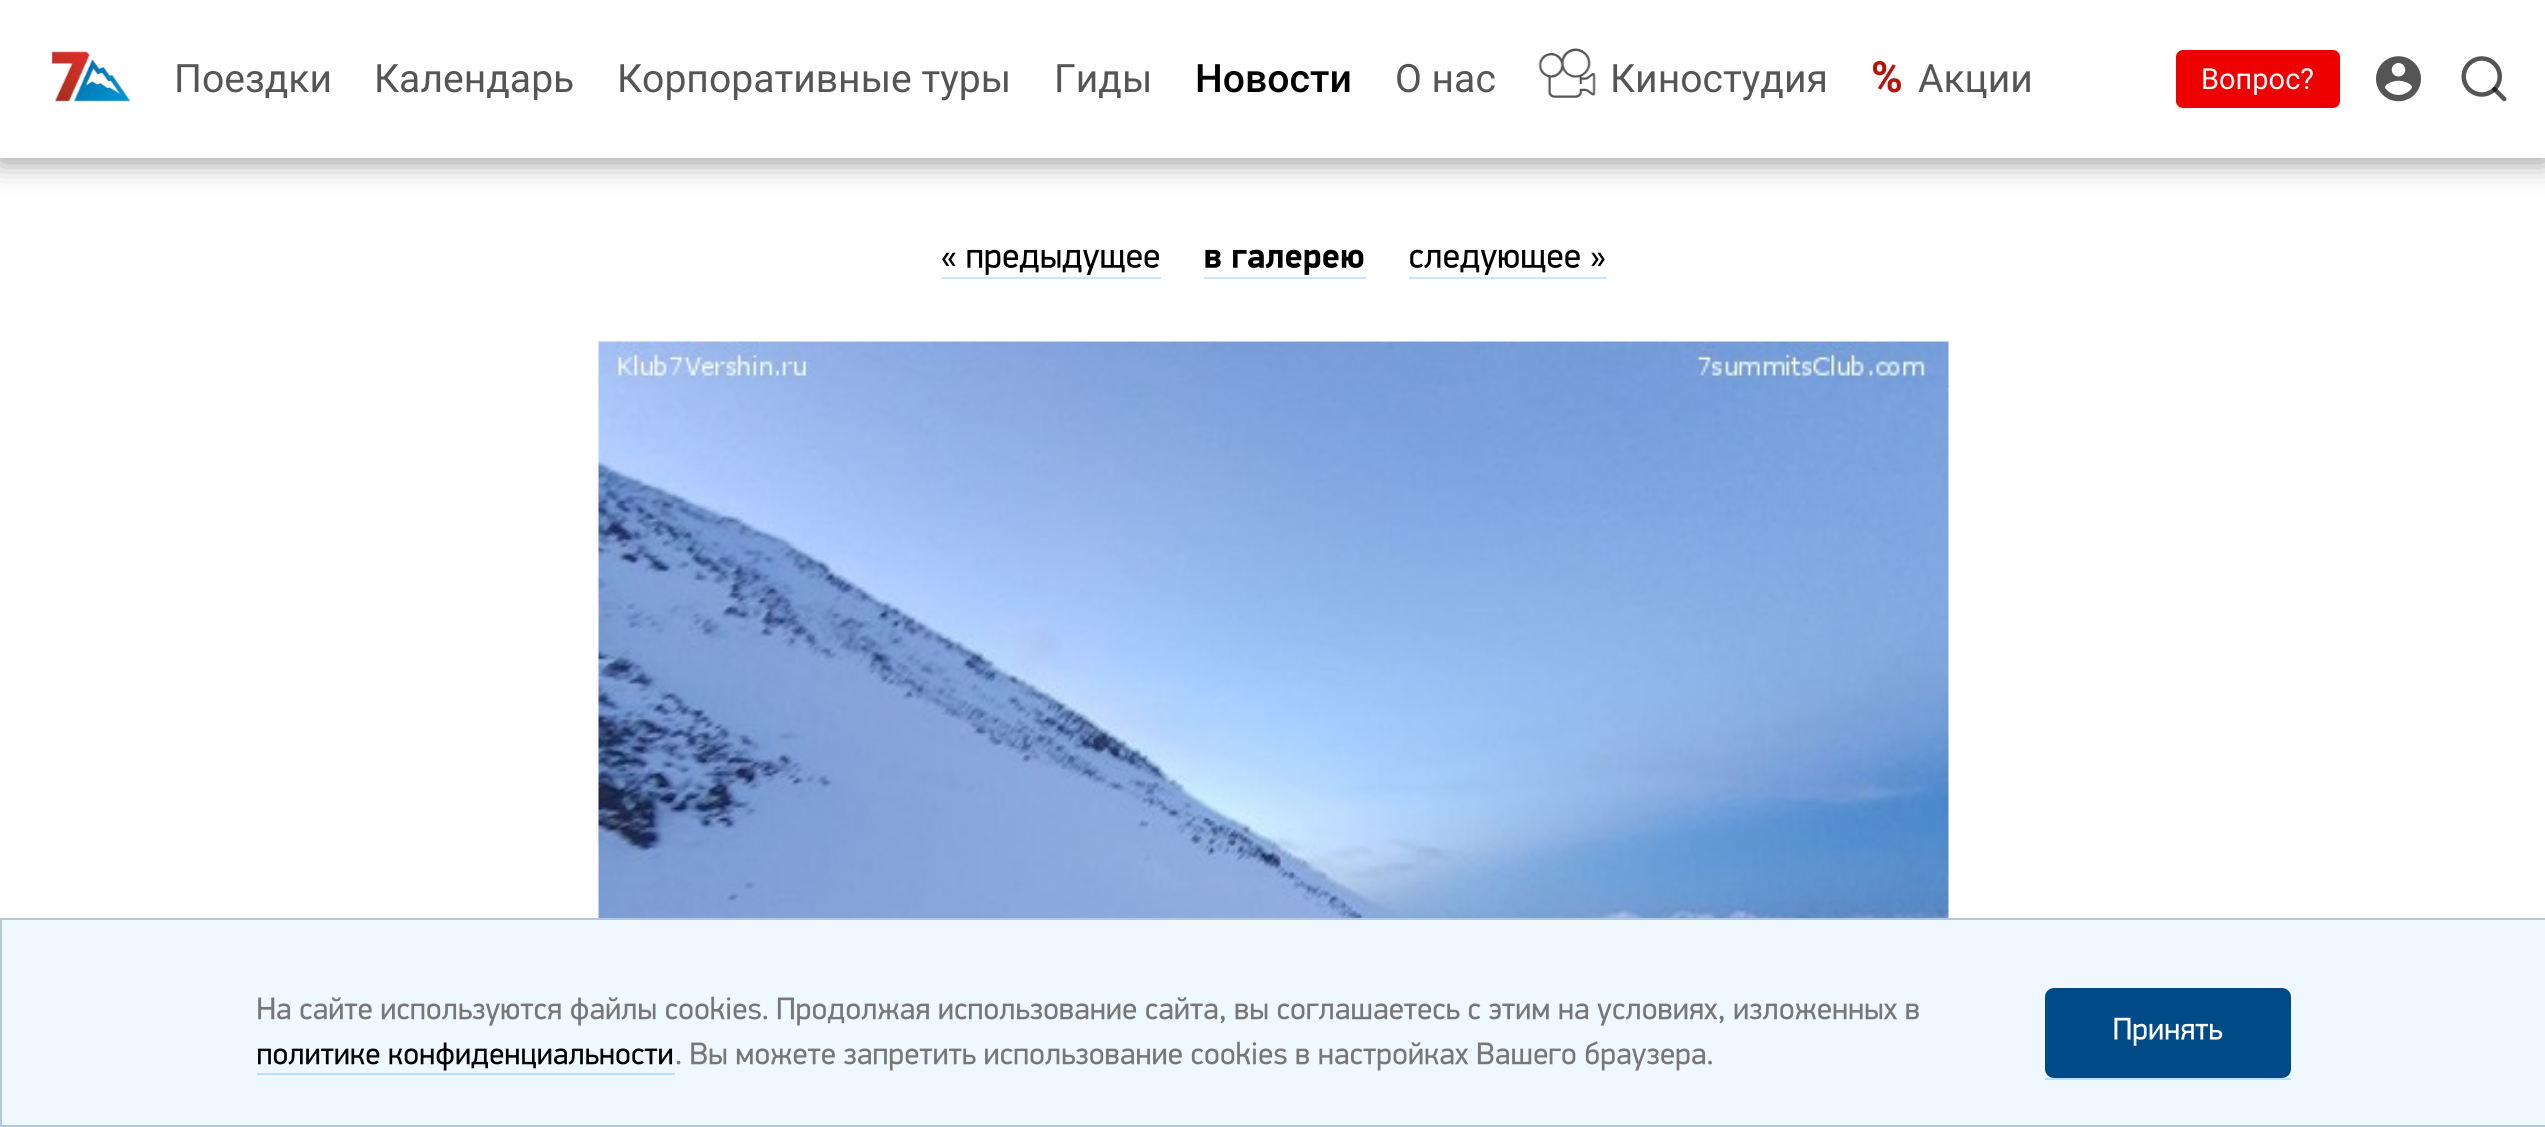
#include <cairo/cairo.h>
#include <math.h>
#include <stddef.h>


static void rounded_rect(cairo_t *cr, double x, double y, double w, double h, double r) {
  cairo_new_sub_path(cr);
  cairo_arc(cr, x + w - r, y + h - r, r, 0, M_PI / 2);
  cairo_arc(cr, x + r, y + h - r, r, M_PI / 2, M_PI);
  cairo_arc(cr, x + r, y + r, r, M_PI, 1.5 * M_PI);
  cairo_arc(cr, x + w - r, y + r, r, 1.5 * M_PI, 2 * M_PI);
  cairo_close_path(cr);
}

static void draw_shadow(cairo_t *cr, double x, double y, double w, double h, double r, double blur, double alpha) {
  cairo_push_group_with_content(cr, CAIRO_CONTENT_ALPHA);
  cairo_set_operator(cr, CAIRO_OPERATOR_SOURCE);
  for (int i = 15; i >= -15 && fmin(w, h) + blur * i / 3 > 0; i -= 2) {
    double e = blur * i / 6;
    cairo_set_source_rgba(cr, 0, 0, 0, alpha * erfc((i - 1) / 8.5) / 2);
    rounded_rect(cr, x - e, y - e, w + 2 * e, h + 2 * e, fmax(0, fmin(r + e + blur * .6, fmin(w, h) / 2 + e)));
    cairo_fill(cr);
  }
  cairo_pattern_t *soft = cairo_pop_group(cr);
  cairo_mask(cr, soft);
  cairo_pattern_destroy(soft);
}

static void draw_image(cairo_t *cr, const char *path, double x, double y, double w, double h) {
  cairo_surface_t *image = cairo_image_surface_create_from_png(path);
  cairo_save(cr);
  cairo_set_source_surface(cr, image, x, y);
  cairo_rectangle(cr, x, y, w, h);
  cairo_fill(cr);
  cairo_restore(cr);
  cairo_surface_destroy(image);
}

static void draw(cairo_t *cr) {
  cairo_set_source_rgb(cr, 1, 1, 1);
  cairo_paint(cr);
  cairo_set_source_rgb(cr, 0, 0, 0);
  draw_shadow(cr, 0, -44, 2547, 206, 0, 14.5, 0.4);
  cairo_set_source_rgb(cr, 1, 1, 1);
  cairo_rectangle(cr, 0, 0, 2545, 158);
  cairo_fill(cr);
  draw_image(cr, "images/1.png", 52, 51, 79, 51);
  draw_image(cr, "images/2.png", 1538, 48, 58, 50);
  cairo_set_source_rgb(cr, 238 / 255.0, 0, 0);
  rounded_rect(cr, 2177, 51, 162, 56, 6);
  cairo_fill_preserve(cr);
  cairo_stroke(cr);
  draw_image(cr, "images/3.png", 2376, 56, 45, 46);
  draw_image(cr, "images/4.png", 2461, 56, 46, 46);
  draw_image(cr, "images/5.png", 942, 249, 217, 26);
  draw_image(cr, "images/6.png", 1205, 249, 159, 26);
  draw_image(cr, "images/7.png", 1410, 249, 195, 26);
  cairo_set_source_rgb(cr, 202 / 255.0, 227 / 255.0, 1);
  cairo_rectangle(cr, 941, 277, 220, 2);
  cairo_fill(cr);
  cairo_rectangle(cr, 1204, 277, 162, 2);
  cairo_fill(cr);
  cairo_rectangle(cr, 1409, 277, 198, 2);
  cairo_fill(cr);
  cairo_rectangle(cr, 1948, 385, 1, 2);
  cairo_fill(cr);
  draw_image(cr, "images/8.png", 598, 341, 1351, 577);
  cairo_set_source_rgb(cr, 239 / 255.0, 248 / 255.0, 1);
  cairo_rectangle(cr, 1, 919, 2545, 207);
  cairo_fill_preserve(cr);
  cairo_set_source_rgb(cr, 180 / 255.0, 200 / 255.0, 217 / 255.0);
  cairo_stroke(cr);
  draw_image(cr, "images/9.png", 258, 996, 1661, 30);
  draw_image(cr, "images/10.png", 258, 1042, 415, 29);
  draw_image(cr, "images/11.png", 676, 1041, 1036, 30);
  cairo_set_source_rgb(cr, 189 / 255.0, 221 / 255.0, 1);
  cairo_rectangle(cr, 257, 1073, 418, 2);
  cairo_fill(cr);
  cairo_rectangle(cr, 2045, 1078, 246, 2);
  cairo_fill(cr);
  cairo_set_source_rgb(cr, 0, 74 / 255.0, 135 / 255.0);
  rounded_rect(cr, 2045, 988, 246, 90, 9);
  cairo_fill(cr);
  draw_image(cr, "images/12.png", 2114, 1017, 109, 29);
  cairo_select_font_face(cr, "Roboto", CAIRO_FONT_SLANT_NORMAL, CAIRO_FONT_WEIGHT_NORMAL);
  cairo_set_font_size(cr, 39.1);
  cairo_set_source_rgb(cr, 85 / 255.0, 85 / 255.0, 85 / 255.0);
  cairo_move_to(cr, 174, 92);
  cairo_show_text(cr, "Поездки");
  cairo_move_to(cr, 374, 92);
  cairo_show_text(cr, "Календарь");
  cairo_move_to(cr, 617, 92);
  cairo_show_text(cr, "Корпоративные туры");
  cairo_move_to(cr, 1054, 92);
  cairo_show_text(cr, "Гиды");
  cairo_select_font_face(cr, "Roboto Medium", CAIRO_FONT_SLANT_NORMAL, CAIRO_FONT_WEIGHT_NORMAL);
  cairo_set_source_rgb(cr, 0, 0, 0);
  cairo_move_to(cr, 1195, 92);
  cairo_show_text(cr, "Новости");
  cairo_select_font_face(cr, "Roboto", CAIRO_FONT_SLANT_NORMAL, CAIRO_FONT_WEIGHT_NORMAL);
  cairo_set_source_rgb(cr, 85 / 255.0, 85 / 255.0, 85 / 255.0);
  cairo_move_to(cr, 1395, 92);
  cairo_show_text(cr, "О нас");
  cairo_move_to(cr, 1610, 92);
  cairo_show_text(cr, "Киностудия");
  cairo_select_font_face(cr, "Roboto", CAIRO_FONT_SLANT_NORMAL, CAIRO_FONT_WEIGHT_BOLD);
  cairo_set_font_size(cr, 43);
  cairo_set_source_rgb(cr, 181 / 255.0, 20 / 255.0, 13 / 255.0);
  cairo_move_to(cr, 1871, 92);
  cairo_show_text(cr, "%");
  cairo_select_font_face(cr, "Roboto", CAIRO_FONT_SLANT_NORMAL, CAIRO_FONT_WEIGHT_NORMAL);
  cairo_set_font_size(cr, 39.1);
  cairo_set_source_rgb(cr, 85 / 255.0, 85 / 255.0, 85 / 255.0);
  cairo_move_to(cr, 1918, 92);
  cairo_show_text(cr, "Акции");
  cairo_set_font_size(cr, 29);
  cairo_set_source_rgb(cr, 1, 1, 1);
  cairo_move_to(cr, 2201, 89);
  cairo_show_text(cr, "Вопрос?");
}

int main(void) {
  cairo_surface_t *surface = cairo_image_surface_create(CAIRO_FORMAT_RGB24, 2545, 1127);
  cairo_t *cr = cairo_create(surface);
  cairo_font_options_t *options = cairo_font_options_create();
  cairo_font_options_set_hint_metrics(options, CAIRO_HINT_METRICS_OFF);
  cairo_font_options_set_hint_style(options, CAIRO_HINT_STYLE_NONE);
  cairo_set_font_options(cr, options);
  cairo_set_miter_limit(cr, 4);
  draw(cr);
  cairo_surface_write_to_png(surface, "out.png");
  cairo_font_options_destroy(options);
  cairo_destroy(cr);
  cairo_surface_destroy(surface);
  return 0;
}
